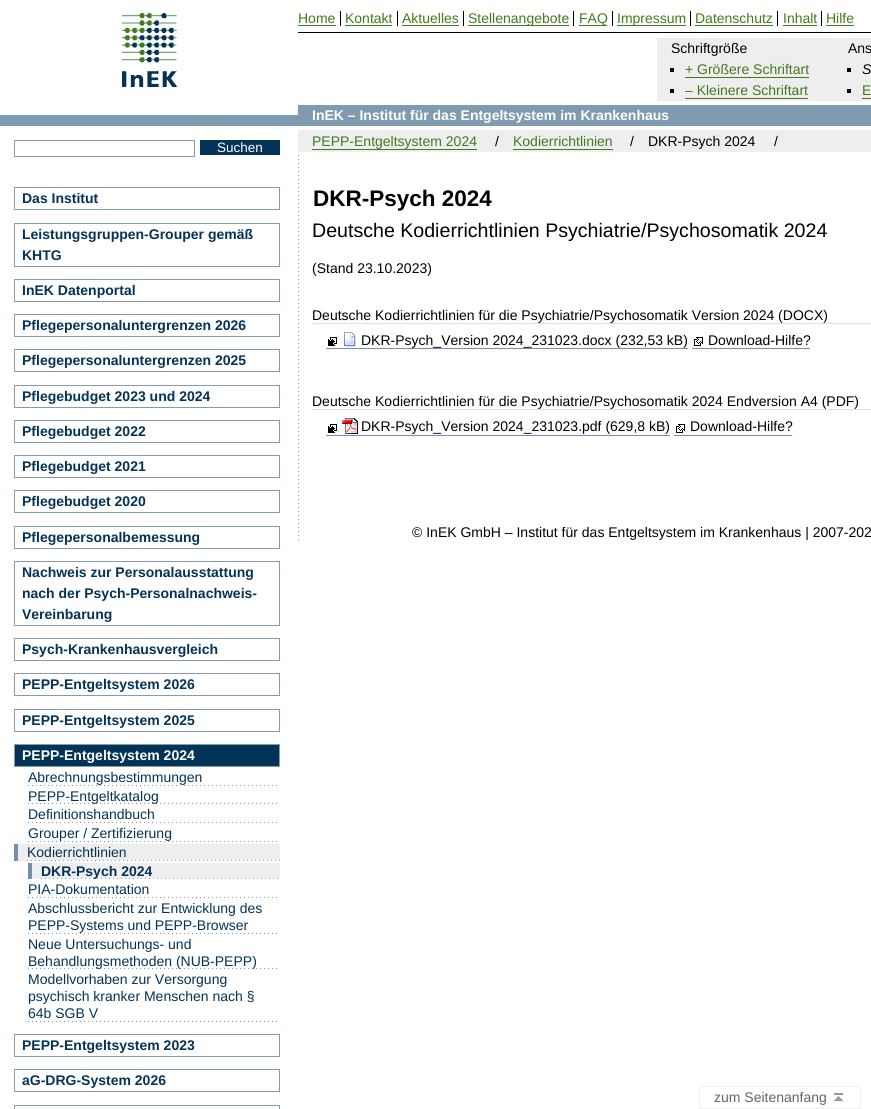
#include <cairo/cairo.h>
#include <math.h>
#include <stddef.h>


static void draw_image(cairo_t *cr, const char *path, double x, double y, double w, double h) {
  cairo_surface_t *image = cairo_image_surface_create_from_png(path);
  cairo_save(cr);
  cairo_set_source_surface(cr, image, x, y);
  cairo_rectangle(cr, x, y, w, h);
  cairo_fill(cr);
  cairo_restore(cr);
  cairo_surface_destroy(image);
}

static void draw(cairo_t *cr) {
  cairo_set_source_rgb(cr, 1, 1, 1);
  cairo_paint(cr);
  cairo_set_source_rgb(cr, 127 / 255.0, 155 / 255.0, 175 / 255.0);
  cairo_rectangle(cr, 0, 115, 298, 11);
  cairo_fill(cr);
  draw_image(cr, "images/1.png", 122, 13, 55, 74);
  cairo_set_source_rgb(cr, 0, 0, 0);
  cairo_rectangle(cr, 298, 32, 573, 1);
  cairo_fill(cr);
  cairo_rectangle(cr, 340, 11, 1, 15);
  cairo_fill(cr);
  cairo_set_source_rgb(cr, 67 / 255.0, 122 / 255.0, 30 / 255.0);
  cairo_rectangle(cr, 298, 25, 38, 1);
  cairo_fill(cr);
  cairo_set_source_rgb(cr, 0, 0, 0);
  cairo_rectangle(cr, 397, 11, 1, 15);
  cairo_fill(cr);
  cairo_set_source_rgb(cr, 67 / 255.0, 122 / 255.0, 30 / 255.0);
  cairo_rectangle(cr, 345, 25, 47, 1);
  cairo_fill(cr);
  cairo_set_source_rgb(cr, 0, 0, 0);
  cairo_rectangle(cr, 463, 11, 1, 15);
  cairo_fill(cr);
  cairo_set_source_rgb(cr, 67 / 255.0, 122 / 255.0, 30 / 255.0);
  cairo_rectangle(cr, 402, 25, 57, 1);
  cairo_fill(cr);
  cairo_set_source_rgb(cr, 0, 0, 0);
  cairo_rectangle(cr, 573, 11, 1, 15);
  cairo_fill(cr);
  cairo_set_source_rgb(cr, 67 / 255.0, 122 / 255.0, 30 / 255.0);
  cairo_rectangle(cr, 468, 25, 101, 1);
  cairo_fill(cr);
  cairo_set_source_rgb(cr, 0, 0, 0);
  cairo_rectangle(cr, 612, 11, 1, 15);
  cairo_fill(cr);
  cairo_set_source_rgb(cr, 67 / 255.0, 122 / 255.0, 30 / 255.0);
  cairo_rectangle(cr, 579, 25, 28, 1);
  cairo_fill(cr);
  cairo_set_source_rgb(cr, 0, 0, 0);
  cairo_rectangle(cr, 690, 11, 1, 15);
  cairo_fill(cr);
  cairo_set_source_rgb(cr, 67 / 255.0, 122 / 255.0, 30 / 255.0);
  cairo_rectangle(cr, 617, 25, 69, 1);
  cairo_fill(cr);
  cairo_set_source_rgb(cr, 0, 0, 0);
  cairo_rectangle(cr, 777, 11, 1, 15);
  cairo_fill(cr);
  cairo_set_source_rgb(cr, 67 / 255.0, 122 / 255.0, 30 / 255.0);
  cairo_rectangle(cr, 695, 25, 78, 1);
  cairo_fill(cr);
  cairo_set_source_rgb(cr, 0, 0, 0);
  cairo_rectangle(cr, 821, 11, 1, 15);
  cairo_fill(cr);
  cairo_set_source_rgb(cr, 67 / 255.0, 122 / 255.0, 30 / 255.0);
  cairo_rectangle(cr, 783, 25, 34, 1);
  cairo_fill(cr);
  cairo_rectangle(cr, 826, 25, 28, 1);
  cairo_fill(cr);
  cairo_set_source_rgb(cr, 238 / 255.0, 238 / 255.0, 238 / 255.0);
  cairo_rectangle(cr, 657, 38, 214, 63);
  cairo_fill(cr);
  cairo_set_source_rgb(cr, 0, 0, 0);
  cairo_rectangle(cr, 670, 68, 4, 4);
  cairo_fill(cr);
  cairo_set_source_rgb(cr, 67 / 255.0, 122 / 255.0, 30 / 255.0);
  cairo_rectangle(cr, 685, 77, 124, 1);
  cairo_fill(cr);
  cairo_set_source_rgb(cr, 0, 0, 0);
  cairo_rectangle(cr, 670, 89, 4, 4);
  cairo_fill(cr);
  cairo_set_source_rgb(cr, 67 / 255.0, 122 / 255.0, 30 / 255.0);
  cairo_rectangle(cr, 685, 98, 123, 1);
  cairo_fill(cr);
  cairo_set_source_rgb(cr, 0, 0, 0);
  cairo_rectangle(cr, 847, 68, 4, 4);
  cairo_fill(cr);
  cairo_rectangle(cr, 847, 89, 4, 4);
  cairo_fill(cr);
  cairo_set_source_rgb(cr, 67 / 255.0, 122 / 255.0, 30 / 255.0);
  cairo_rectangle(cr, 862, 98, 9, 1);
  cairo_fill(cr);
  cairo_rectangle(cr, 14.5, 140.5, 180, 16);
  cairo_set_source_rgb(cr, 128 / 255.0, 156 / 255.0, 174 / 255.0);
  cairo_set_line_width(cr, 1);
  cairo_stroke(cr);
  cairo_set_source_rgb(cr, 4 / 255.0, 51 / 255.0, 88 / 255.0);
  cairo_rectangle(cr, 200, 140, 80, 15);
  cairo_fill(cr);
  cairo_set_source_rgb(cr, 238 / 255.0, 238 / 255.0, 238 / 255.0);
  cairo_rectangle(cr, 298, 130, 573, 22);
  cairo_fill(cr);
  cairo_set_source_rgb(cr, 127 / 255.0, 155 / 255.0, 175 / 255.0);
  cairo_rectangle(cr, 298, 105, 573, 21);
  cairo_fill(cr);
  cairo_set_source_rgb(cr, 67 / 255.0, 122 / 255.0, 30 / 255.0);
  cairo_rectangle(cr, 312, 149, 165, 1);
  cairo_fill(cr);
  cairo_rectangle(cr, 513, 149, 100, 1);
  cairo_fill(cr);
  cairo_rectangle(cr, 14.5, 187.5, 265, 22);
  cairo_set_source_rgb(cr, 128 / 255.0, 156 / 255.0, 174 / 255.0);
  cairo_stroke(cr);
  cairo_rectangle(cr, 14.5, 223.5, 265, 43);
  cairo_stroke(cr);
  cairo_rectangle(cr, 14.5, 279.5, 265, 22);
  cairo_stroke(cr);
  cairo_rectangle(cr, 14.5, 314.5, 265, 22);
  cairo_stroke(cr);
  cairo_rectangle(cr, 14.5, 349.5, 265, 22);
  cairo_stroke(cr);
  cairo_rectangle(cr, 14.5, 385.5, 265, 22);
  cairo_stroke(cr);
  cairo_rectangle(cr, 14.5, 420.5, 265, 22);
  cairo_stroke(cr);
  cairo_rectangle(cr, 14.5, 455.5, 265, 22);
  cairo_stroke(cr);
  cairo_rectangle(cr, 14.5, 490.5, 265, 22);
  cairo_stroke(cr);
  cairo_rectangle(cr, 14.5, 526.5, 265, 22);
  cairo_stroke(cr);
  cairo_rectangle(cr, 14.5, 561.5, 265, 64);
  cairo_stroke(cr);
  cairo_rectangle(cr, 14.5, 638.5, 265, 22);
  cairo_stroke(cr);
  cairo_rectangle(cr, 14.5, 673.5, 265, 22);
  cairo_stroke(cr);
  cairo_rectangle(cr, 14.5, 709.5, 265, 22);
  cairo_stroke(cr);
  cairo_set_source_rgb(cr, 4 / 255.0, 51 / 255.0, 88 / 255.0);
  cairo_rectangle(cr, 14.5, 744.5, 265, 22);
  cairo_fill_preserve(cr);
  cairo_set_source_rgb(cr, 128 / 255.0, 156 / 255.0, 174 / 255.0);
  cairo_stroke(cr);
  draw_image(cr, "images/2.png", 28, 785, 249, 1);
  draw_image(cr, "images/2.png", 28, 803, 249, 1);
  draw_image(cr, "images/2.png", 28, 822, 249, 1);
  draw_image(cr, "images/2.png", 28, 841, 249, 1);
  cairo_set_source_rgb(cr, 238 / 255.0, 238 / 255.0, 238 / 255.0);
  cairo_rectangle(cr, 18, 844, 262, 17);
  cairo_fill(cr);
  draw_image(cr, "images/3.png", 27, 860, 253, 1);
  cairo_set_source_rgb(cr, 117 / 255.0, 141 / 255.0, 178 / 255.0);
  cairo_rectangle(cr, 14, 844, 4, 17);
  cairo_fill(cr);
  cairo_set_source_rgb(cr, 238 / 255.0, 238 / 255.0, 238 / 255.0);
  cairo_rectangle(cr, 32, 863, 248, 16);
  cairo_fill(cr);
  draw_image(cr, "images/4.png", 41, 878, 239, 1);
  cairo_set_source_rgb(cr, 117 / 255.0, 141 / 255.0, 178 / 255.0);
  cairo_rectangle(cr, 28, 863, 4, 16);
  cairo_fill(cr);
  draw_image(cr, "images/2.png", 28, 897, 249, 1);
  draw_image(cr, "images/2.png", 28, 933, 249, 1);
  draw_image(cr, "images/2.png", 28, 968, 249, 1);
  draw_image(cr, "images/2.png", 28, 1021, 249, 1);
  cairo_rectangle(cr, 14.5, 1034.5, 265, 22);
  cairo_set_source_rgb(cr, 128 / 255.0, 156 / 255.0, 174 / 255.0);
  cairo_stroke(cr);
  cairo_rectangle(cr, 14.5, 1069.5, 265, 22);
  cairo_stroke(cr);
  cairo_rectangle(cr, 14.5, 1105.5, 265, 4);
  cairo_stroke(cr);
  draw_image(cr, "images/5.png", 298, 155, 1, 385);
  cairo_set_source_rgb(cr, 223 / 255.0, 223 / 255.0, 223 / 255.0);
  cairo_rectangle(cr, 312, 323, 559, 1);
  cairo_fill(cr);
  draw_image(cr, "images/6.png", 328, 337, 9, 9);
  cairo_set_source_rgb(cr, 117 / 255.0, 141 / 255.0, 178 / 255.0);
  cairo_rectangle(cr, 326, 348, 362, 1);
  cairo_fill(cr);
  draw_image(cr, "images/7.png", 344, 332, 12, 15);
  draw_image(cr, "images/8.png", 694, 337, 9, 9);
  cairo_rectangle(cr, 692, 348, 118, 1);
  cairo_fill(cr);
  cairo_set_source_rgb(cr, 223 / 255.0, 223 / 255.0, 223 / 255.0);
  cairo_rectangle(cr, 312, 409, 559, 1);
  cairo_fill(cr);
  draw_image(cr, "images/6.png", 328, 424, 9, 9);
  cairo_set_source_rgb(cr, 117 / 255.0, 141 / 255.0, 178 / 255.0);
  cairo_rectangle(cr, 326, 435, 344, 1);
  cairo_fill(cr);
  draw_image(cr, "images/9.png", 342, 418, 16, 16);
  draw_image(cr, "images/8.png", 676, 424, 9, 9);
  cairo_rectangle(cr, 674, 435, 118, 1);
  cairo_fill(cr);
  cairo_rectangle(cr, 699.5, 1086.5, 161, 22);
  cairo_set_source_rgb(cr, 239 / 255.0, 239 / 255.0, 239 / 255.0);
  cairo_stroke(cr);
  draw_image(cr, "images/10.png", 834, 1093, 9, 8);
  cairo_select_font_face(cr, "Liberation Sans", CAIRO_FONT_SLANT_NORMAL, CAIRO_FONT_WEIGHT_NORMAL);
  cairo_set_font_size(cr, 14);
  cairo_set_source_rgb(cr, 67 / 255.0, 122 / 255.0, 30 / 255.0);
  cairo_move_to(cr, 298, 23);
  cairo_show_text(cr, "Home");
  cairo_move_to(cr, 345, 23);
  cairo_show_text(cr, "Kontakt");
  cairo_move_to(cr, 402, 23);
  cairo_show_text(cr, "Aktuelles");
  cairo_move_to(cr, 468, 23);
  cairo_show_text(cr, "Stellenangebote");
  cairo_move_to(cr, 579, 23);
  cairo_show_text(cr, "FAQ");
  cairo_move_to(cr, 617, 23);
  cairo_show_text(cr, "Impressum");
  cairo_move_to(cr, 695, 23);
  cairo_show_text(cr, "Datenschutz");
  cairo_move_to(cr, 783, 23);
  cairo_show_text(cr, "Inhalt");
  cairo_move_to(cr, 826, 23);
  cairo_show_text(cr, "Hilfe");
  cairo_set_source_rgb(cr, 0, 0, 0);
  cairo_move_to(cr, 671, 53);
  cairo_show_text(cr, "Schriftgröße");
  cairo_set_source_rgb(cr, 67 / 255.0, 122 / 255.0, 30 / 255.0);
  cairo_move_to(cr, 685, 74);
  cairo_show_text(cr, "+ Größere Schriftart");
  cairo_move_to(cr, 685, 95);
  cairo_show_text(cr, "– Kleinere Schriftart");
  cairo_set_source_rgb(cr, 0, 0, 0);
  cairo_move_to(cr, 848, 53);
  cairo_show_text(cr, "Ans");
  cairo_select_font_face(cr, "Liberation Sans", CAIRO_FONT_SLANT_ITALIC, CAIRO_FONT_WEIGHT_NORMAL);
  cairo_move_to(cr, 862, 74);
  cairo_show_text(cr, "S");
  cairo_select_font_face(cr, "Liberation Sans", CAIRO_FONT_SLANT_NORMAL, CAIRO_FONT_WEIGHT_NORMAL);
  cairo_set_source_rgb(cr, 67 / 255.0, 122 / 255.0, 30 / 255.0);
  cairo_move_to(cr, 862, 95);
  cairo_show_text(cr, "E");
  cairo_set_font_size(cr, 13.5);
  cairo_set_source_rgb(cr, 1, 1, 1);
  cairo_move_to(cr, 217, 152);
  cairo_show_text(cr, "Suchen");
  cairo_select_font_face(cr, "Liberation Sans", CAIRO_FONT_SLANT_NORMAL, CAIRO_FONT_WEIGHT_BOLD);
  cairo_set_font_size(cr, 14);
  cairo_move_to(cr, 312, 120);
  cairo_show_text(cr, "InEK – Institut für das Entgeltsystem im Krankenhaus");
  cairo_select_font_face(cr, "Liberation Sans", CAIRO_FONT_SLANT_NORMAL, CAIRO_FONT_WEIGHT_NORMAL);
  cairo_set_source_rgb(cr, 67 / 255.0, 122 / 255.0, 30 / 255.0);
  cairo_move_to(cr, 312, 146);
  cairo_show_text(cr, "PEPP-Entgeltsystem 2024");
  cairo_set_source_rgb(cr, 0, 0, 0);
  cairo_move_to(cr, 495, 146);
  cairo_show_text(cr, "/");
  cairo_set_source_rgb(cr, 67 / 255.0, 122 / 255.0, 30 / 255.0);
  cairo_move_to(cr, 513, 146);
  cairo_show_text(cr, "Kodierrichtlinien");
  cairo_set_source_rgb(cr, 0, 0, 0);
  cairo_move_to(cr, 630, 146);
  cairo_show_text(cr, "/");
  cairo_move_to(cr, 648, 146);
  cairo_show_text(cr, "DKR-Psych 2024");
  cairo_move_to(cr, 774, 146);
  cairo_show_text(cr, "/");
  cairo_select_font_face(cr, "Liberation Sans", CAIRO_FONT_SLANT_NORMAL, CAIRO_FONT_WEIGHT_BOLD);
  cairo_set_source_rgb(cr, 4 / 255.0, 51 / 255.0, 88 / 255.0);
  cairo_move_to(cr, 22, 203);
  cairo_show_text(cr, "Das Institut");
  cairo_move_to(cr, 22, 239);
  cairo_show_text(cr, "Leistungsgruppen-Grouper gemäß");
  cairo_move_to(cr, 22, 260);
  cairo_show_text(cr, "KHTG");
  cairo_move_to(cr, 22, 295);
  cairo_show_text(cr, "InEK Datenportal");
  cairo_move_to(cr, 22, 330);
  cairo_show_text(cr, "Pflegepersonaluntergrenzen 2026");
  cairo_move_to(cr, 22, 365);
  cairo_show_text(cr, "Pflegepersonaluntergrenzen 2025");
  cairo_move_to(cr, 22, 401);
  cairo_show_text(cr, "Pflegebudget 2023 und 2024");
  cairo_move_to(cr, 22, 436);
  cairo_show_text(cr, "Pflegebudget 2022");
  cairo_move_to(cr, 22, 471);
  cairo_show_text(cr, "Pflegebudget 2021");
  cairo_move_to(cr, 22, 506);
  cairo_show_text(cr, "Pflegebudget 2020");
  cairo_move_to(cr, 22, 542);
  cairo_show_text(cr, "Pflegepersonalbemessung");
  cairo_move_to(cr, 22, 577);
  cairo_show_text(cr, "Nachweis zur Personalausstattung");
  cairo_move_to(cr, 22, 598);
  cairo_show_text(cr, "nach der Psych-Personalnachweis-");
  cairo_move_to(cr, 22, 619);
  cairo_show_text(cr, "Vereinbarung");
  cairo_move_to(cr, 22, 654);
  cairo_show_text(cr, "Psych-Krankenhausvergleich");
  cairo_move_to(cr, 22, 689);
  cairo_show_text(cr, "PEPP-Entgeltsystem 2026");
  cairo_move_to(cr, 22, 725);
  cairo_show_text(cr, "PEPP-Entgeltsystem 2025");
  cairo_set_source_rgb(cr, 1, 1, 1);
  cairo_move_to(cr, 22, 760);
  cairo_show_text(cr, "PEPP-Entgeltsystem 2024");
  cairo_select_font_face(cr, "Liberation Sans", CAIRO_FONT_SLANT_NORMAL, CAIRO_FONT_WEIGHT_NORMAL);
  cairo_set_source_rgb(cr, 4 / 255.0, 51 / 255.0, 88 / 255.0);
  cairo_move_to(cr, 28, 782);
  cairo_show_text(cr, "Abrechnungsbestimmungen");
  cairo_move_to(cr, 28, 801);
  cairo_show_text(cr, "PEPP-Entgeltkatalog");
  cairo_move_to(cr, 28, 819);
  cairo_show_text(cr, "Definitionshandbuch");
  cairo_move_to(cr, 28, 838);
  cairo_show_text(cr, "Grouper / Zertifizierung");
  cairo_move_to(cr, 27, 857);
  cairo_show_text(cr, "Kodierrichtlinien");
  cairo_select_font_face(cr, "Liberation Sans", CAIRO_FONT_SLANT_NORMAL, CAIRO_FONT_WEIGHT_BOLD);
  cairo_move_to(cr, 41, 876);
  cairo_show_text(cr, "DKR-Psych 2024");
  cairo_select_font_face(cr, "Liberation Sans", CAIRO_FONT_SLANT_NORMAL, CAIRO_FONT_WEIGHT_NORMAL);
  cairo_move_to(cr, 28, 894);
  cairo_show_text(cr, "PIA-Dokumentation");
  cairo_move_to(cr, 28, 913);
  cairo_show_text(cr, "Abschlussbericht zur Entwicklung des");
  cairo_move_to(cr, 28, 930);
  cairo_show_text(cr, "PEPP-Systems und PEPP-Browser");
  cairo_move_to(cr, 28, 949);
  cairo_show_text(cr, "Neue Untersuchungs- und");
  cairo_move_to(cr, 28, 966);
  cairo_show_text(cr, "Behandlungsmethoden (NUB-PEPP)");
  cairo_move_to(cr, 28, 984);
  cairo_show_text(cr, "Modellvorhaben zur Versorgung");
  cairo_move_to(cr, 28, 1001);
  cairo_show_text(cr, "psychisch kranker Menschen nach §");
  cairo_move_to(cr, 28, 1018);
  cairo_show_text(cr, "64b SGB V");
  cairo_select_font_face(cr, "Liberation Sans", CAIRO_FONT_SLANT_NORMAL, CAIRO_FONT_WEIGHT_BOLD);
  cairo_move_to(cr, 22, 1050);
  cairo_show_text(cr, "PEPP-Entgeltsystem 2023");
  cairo_move_to(cr, 22, 1085);
  cairo_show_text(cr, "aG-DRG-System 2026");
  cairo_set_font_size(cr, 22.5);
  cairo_set_source_rgb(cr, 0, 0, 0);
  cairo_move_to(cr, 313, 206);
  cairo_show_text(cr, "DKR-Psych 2024");
  cairo_select_font_face(cr, "Liberation Sans", CAIRO_FONT_SLANT_NORMAL, CAIRO_FONT_WEIGHT_NORMAL);
  cairo_set_font_size(cr, 19.6);
  cairo_move_to(cr, 312, 237);
  cairo_show_text(cr, "Deutsche Kodierrichtlinien Psychiatrie/Psychosomatik 2024");
  cairo_set_font_size(cr, 14);
  cairo_move_to(cr, 312, 273);
  cairo_show_text(cr, "(Stand 23.10.2023)");
  cairo_move_to(cr, 312, 320);
  cairo_show_text(cr, "Deutsche Kodierrichtlinien für die Psychiatrie/Psychosomatik Version 2024 (DOCX)");
  cairo_move_to(cr, 361, 345);
  cairo_show_text(cr, "DKR-Psych_Version 2024_231023.docx (232,53 kB)");
  cairo_move_to(cr, 708, 345);
  cairo_show_text(cr, "Download-Hilfe?");
  cairo_move_to(cr, 312, 406);
  cairo_show_text(cr, "Deutsche Kodierrichtlinien für die Psychiatrie/Psychosomatik 2024 Endversion A4 (PDF)");
  cairo_move_to(cr, 361, 431);
  cairo_show_text(cr, "DKR-Psych_Version 2024_231023.pdf (629,8 kB)");
  cairo_move_to(cr, 690, 431);
  cairo_show_text(cr, "Download-Hilfe?");
  cairo_move_to(cr, 412, 537);
  cairo_show_text(cr, "© InEK GmbH – Institut für das Entgeltsystem im Krankenhaus | 2007-202");
  cairo_set_source_rgb(cr, 102 / 255.0, 102 / 255.0, 102 / 255.0);
  cairo_move_to(cr, 714, 1102);
  cairo_show_text(cr, "zum Seitenanfang");
}

int main(void) {
  cairo_surface_t *surface = cairo_image_surface_create(CAIRO_FORMAT_RGB24, 871, 1109);
  cairo_t *cr = cairo_create(surface);
  cairo_font_options_t *options = cairo_font_options_create();
  cairo_font_options_set_hint_metrics(options, CAIRO_HINT_METRICS_OFF);
  cairo_font_options_set_hint_style(options, CAIRO_HINT_STYLE_NONE);
  cairo_set_font_options(cr, options);
  cairo_set_miter_limit(cr, 4);
  draw(cr);
  cairo_surface_write_to_png(surface, "out.png");
  cairo_font_options_destroy(options);
  cairo_destroy(cr);
  cairo_surface_destroy(surface);
  return 0;
}
